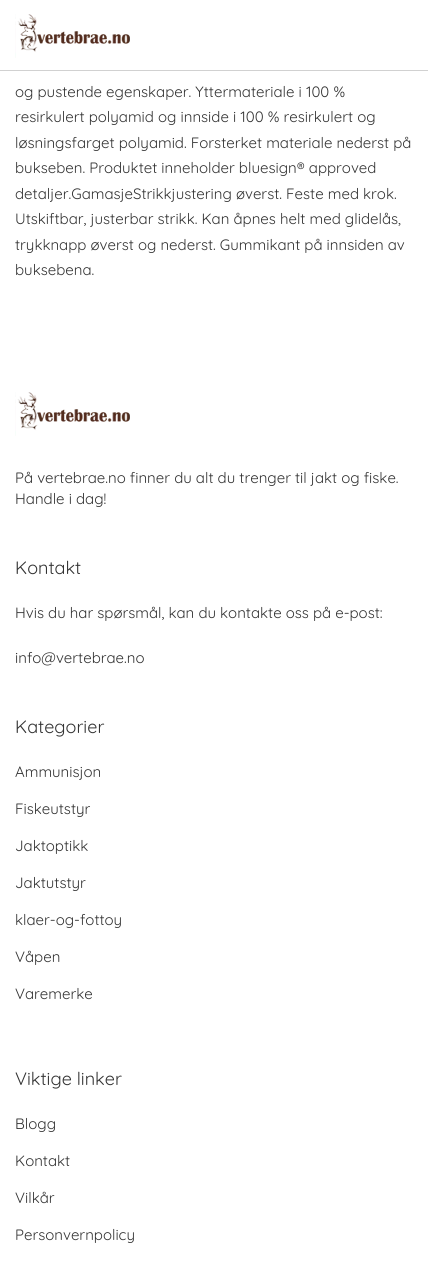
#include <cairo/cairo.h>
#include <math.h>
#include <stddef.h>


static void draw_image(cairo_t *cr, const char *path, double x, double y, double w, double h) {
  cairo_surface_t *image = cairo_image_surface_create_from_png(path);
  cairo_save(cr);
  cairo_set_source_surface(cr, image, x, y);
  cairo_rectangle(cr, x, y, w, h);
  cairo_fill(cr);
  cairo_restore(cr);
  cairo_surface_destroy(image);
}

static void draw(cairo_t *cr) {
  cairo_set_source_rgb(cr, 1, 1, 1);
  cairo_paint(cr);
  cairo_set_source_rgb(cr, 209 / 255.0, 209 / 255.0, 209 / 255.0);
  cairo_rectangle(cr, 0, 70, 428, 1);
  cairo_fill(cr);
  draw_image(cr, "images/1.png", 15, 14, 115, 44);
  draw_image(cr, "images/1.png", 15, 392, 115, 44);
  cairo_select_font_face(cr, "Quicksand", CAIRO_FONT_SLANT_NORMAL, CAIRO_FONT_WEIGHT_NORMAL);
  cairo_set_font_size(cr, 15);
  cairo_set_source_rgb(cr, 51 / 255.0, 51 / 255.0, 51 / 255.0);
  cairo_move_to(cr, 15, 97);
  cairo_show_text(cr, "og pustende egenskaper. Yttermateriale i 100 %");
  cairo_move_to(cr, 15, 122);
  cairo_show_text(cr, "resirkulert polyamid og innside i 100 % resirkulert og");
  cairo_move_to(cr, 15, 148);
  cairo_show_text(cr, "løsningsfarget polyamid. Forsterket materiale nederst på");
  cairo_move_to(cr, 15, 173);
  cairo_show_text(cr, "bukseben. Produktet inneholder bluesign® approved");
  cairo_move_to(cr, 15, 199);
  cairo_show_text(cr, "detaljer.GamasjeStrikkjustering øverst. Feste med krok.");
  cairo_move_to(cr, 15, 224);
  cairo_show_text(cr, "Utskiftbar, justerbar strikk. Kan åpnes helt med glidelås,");
  cairo_move_to(cr, 15, 250);
  cairo_show_text(cr, "trykknapp øverst og nederst. Gummikant på innsiden av");
  cairo_move_to(cr, 15, 275);
  cairo_show_text(cr, "buksebena.");
  cairo_move_to(cr, 15, 483);
  cairo_show_text(cr, "På vertebrae.no finner du alt du trenger til jakt og fiske.");
  cairo_move_to(cr, 15, 504);
  cairo_show_text(cr, "Handle i dag!");
  cairo_set_font_size(cr, 18);
  cairo_move_to(cr, 15, 574);
  cairo_show_text(cr, "Kontakt");
  cairo_set_font_size(cr, 15);
  cairo_move_to(cr, 15, 618);
  cairo_show_text(cr, "Hvis du har spørsmål, kan du kontakte oss på e-post:");
  cairo_move_to(cr, 15, 663);
  cairo_show_text(cr, "info@vertebrae.no");
  cairo_set_font_size(cr, 18);
  cairo_move_to(cr, 15, 733);
  cairo_show_text(cr, "Kategorier");
  cairo_set_font_size(cr, 15);
  cairo_move_to(cr, 15, 777);
  cairo_show_text(cr, "Ammunisjon");
  cairo_move_to(cr, 15, 814);
  cairo_show_text(cr, "Fiskeutstyr");
  cairo_move_to(cr, 15, 851);
  cairo_show_text(cr, "Jaktoptikk");
  cairo_move_to(cr, 15, 888);
  cairo_show_text(cr, "Jaktutstyr");
  cairo_move_to(cr, 15, 925);
  cairo_show_text(cr, "klaer-og-fottoy");
  cairo_move_to(cr, 15, 962);
  cairo_show_text(cr, "Våpen");
  cairo_move_to(cr, 15, 999);
  cairo_show_text(cr, "Varemerke");
  cairo_set_font_size(cr, 18);
  cairo_move_to(cr, 15, 1085);
  cairo_show_text(cr, "Viktige linker");
  cairo_set_font_size(cr, 15);
  cairo_move_to(cr, 15, 1129);
  cairo_show_text(cr, "Blogg");
  cairo_move_to(cr, 15, 1166);
  cairo_show_text(cr, "Kontakt");
  cairo_move_to(cr, 15, 1203);
  cairo_show_text(cr, "Vilkår");
  cairo_move_to(cr, 15, 1240);
  cairo_show_text(cr, "Personvernpolicy");
}

int main(void) {
  cairo_surface_t *surface = cairo_image_surface_create(CAIRO_FORMAT_RGB24, 428, 1267);
  cairo_t *cr = cairo_create(surface);
  cairo_font_options_t *options = cairo_font_options_create();
  cairo_font_options_set_hint_metrics(options, CAIRO_HINT_METRICS_OFF);
  cairo_font_options_set_hint_style(options, CAIRO_HINT_STYLE_NONE);
  cairo_set_font_options(cr, options);
  cairo_set_miter_limit(cr, 4);
  draw(cr);
  cairo_surface_write_to_png(surface, "out.png");
  cairo_font_options_destroy(options);
  cairo_destroy(cr);
  cairo_surface_destroy(surface);
  return 0;
}
